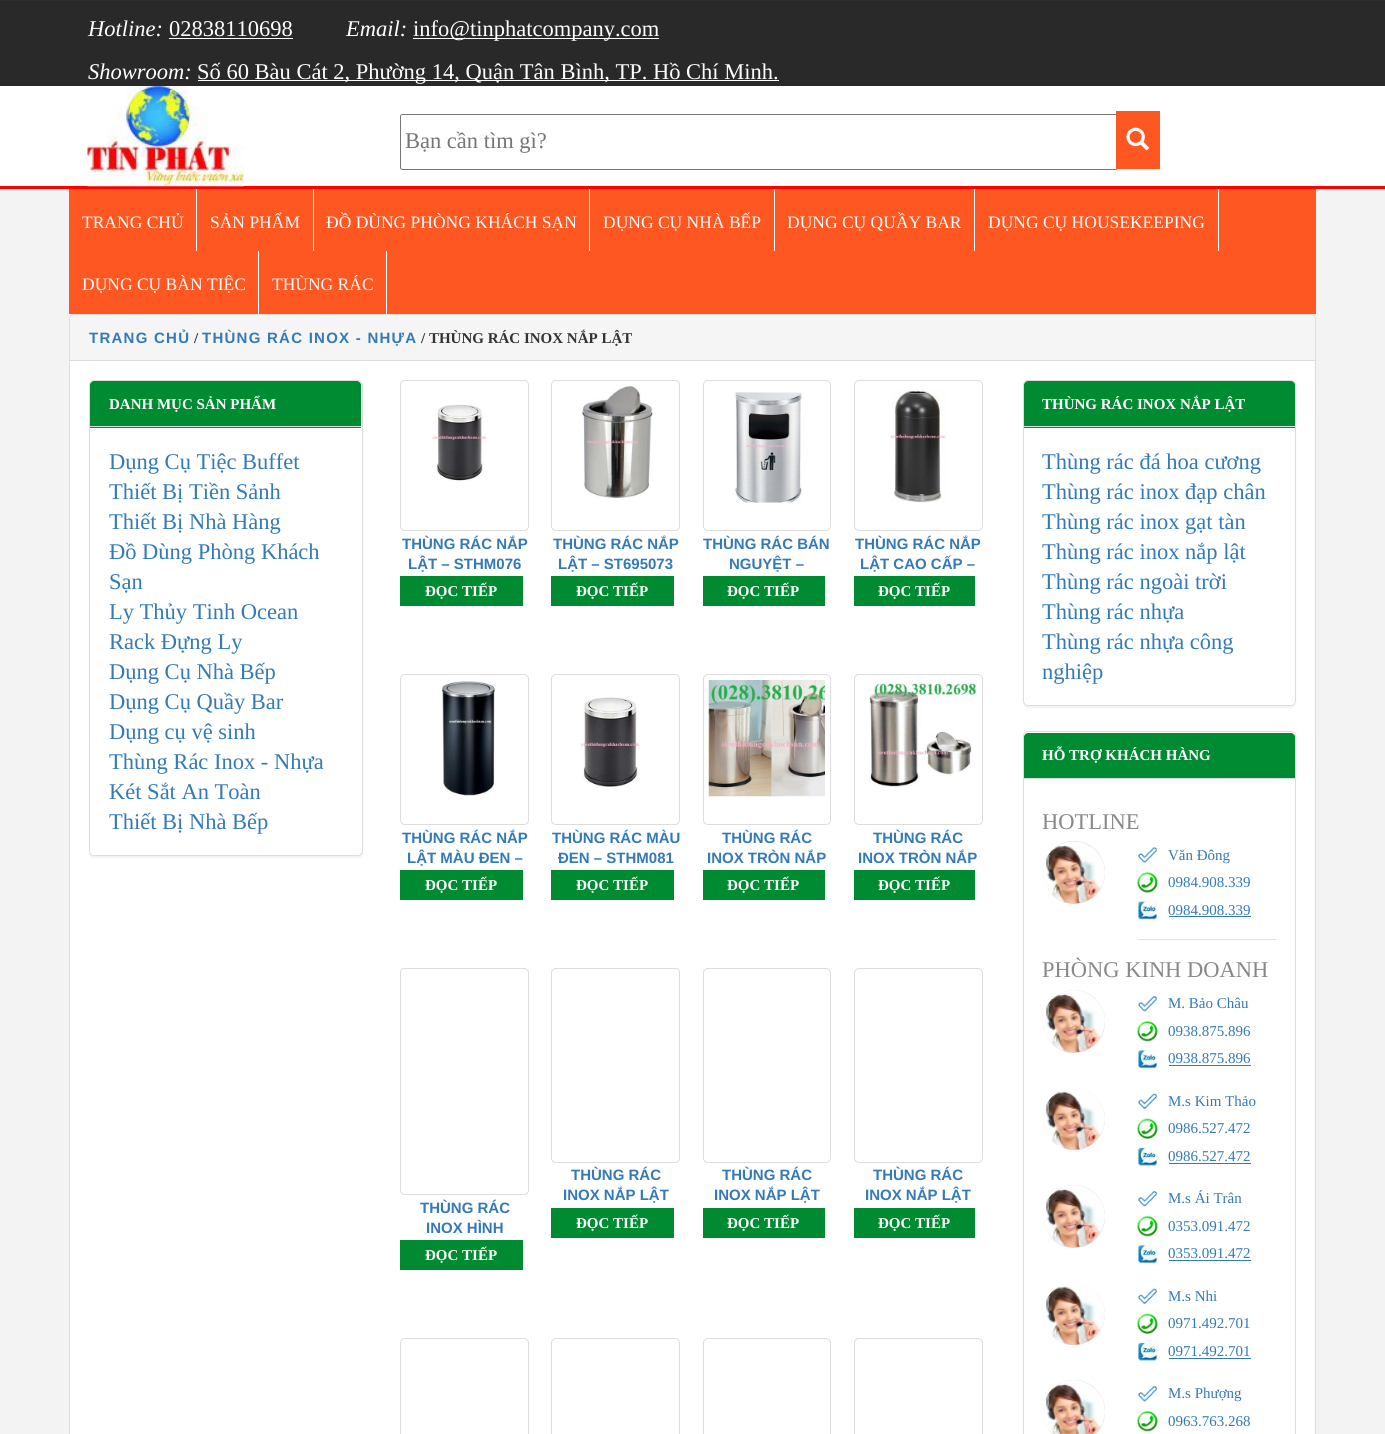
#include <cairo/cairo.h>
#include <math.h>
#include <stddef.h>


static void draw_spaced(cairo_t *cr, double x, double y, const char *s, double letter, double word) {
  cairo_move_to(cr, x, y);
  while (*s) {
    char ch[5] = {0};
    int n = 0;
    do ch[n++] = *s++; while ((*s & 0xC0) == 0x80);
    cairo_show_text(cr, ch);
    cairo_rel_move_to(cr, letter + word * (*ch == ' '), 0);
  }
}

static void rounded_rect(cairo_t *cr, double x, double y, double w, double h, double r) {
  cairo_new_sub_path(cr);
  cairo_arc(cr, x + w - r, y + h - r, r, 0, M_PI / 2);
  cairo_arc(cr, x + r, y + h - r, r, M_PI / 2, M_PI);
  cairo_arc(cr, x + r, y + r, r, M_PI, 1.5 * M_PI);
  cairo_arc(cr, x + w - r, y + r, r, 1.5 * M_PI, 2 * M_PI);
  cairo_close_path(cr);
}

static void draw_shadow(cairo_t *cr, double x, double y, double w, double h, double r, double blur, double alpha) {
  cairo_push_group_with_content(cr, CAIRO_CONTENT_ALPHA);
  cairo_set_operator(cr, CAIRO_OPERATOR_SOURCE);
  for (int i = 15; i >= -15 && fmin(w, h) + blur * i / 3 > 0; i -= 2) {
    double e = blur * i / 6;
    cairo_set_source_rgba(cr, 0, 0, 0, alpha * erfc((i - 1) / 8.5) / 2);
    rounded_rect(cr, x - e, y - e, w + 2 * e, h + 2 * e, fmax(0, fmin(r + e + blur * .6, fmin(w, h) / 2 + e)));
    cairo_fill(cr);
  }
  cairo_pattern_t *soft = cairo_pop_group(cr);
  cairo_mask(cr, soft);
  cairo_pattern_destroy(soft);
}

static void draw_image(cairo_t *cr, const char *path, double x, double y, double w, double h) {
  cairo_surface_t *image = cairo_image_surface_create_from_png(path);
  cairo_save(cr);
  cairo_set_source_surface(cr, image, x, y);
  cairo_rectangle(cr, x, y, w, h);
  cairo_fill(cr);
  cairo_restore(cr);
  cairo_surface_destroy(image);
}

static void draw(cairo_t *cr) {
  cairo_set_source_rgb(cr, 243 / 255.0, 243 / 255.0, 243 / 255.0);
  cairo_paint(cr);
  cairo_set_source_rgb(cr, 41 / 255.0, 41 / 255.0, 41 / 255.0);
  cairo_rectangle(cr, 0, 1, 1385, 85);
  cairo_fill(cr);
  cairo_set_source_rgb(cr, 47 / 255.0, 46 / 255.0, 42 / 255.0);
  cairo_rectangle(cr, 0, 0, 1385, 1);
  cairo_fill(cr);
  cairo_set_source_rgb(cr, 1, 1, 1);
  cairo_rectangle(cr, 169, 38, 124, 1);
  cairo_fill(cr);
  cairo_rectangle(cr, 413, 38, 246, 1);
  cairo_fill(cr);
  cairo_rectangle(cr, 198, 80, 581, 1);
  cairo_fill(cr);
  cairo_rectangle(cr, 0, 86, 1385, 100);
  cairo_fill(cr);
  cairo_set_source_rgb(cr, 1, 0, 0);
  cairo_rectangle(cr, 0, 186, 1385, 3);
  cairo_fill(cr);
  draw_image(cr, "images/1.png", 87, 86, 157, 101);
  rounded_rect(cr, 400.5, 114.5, 717, 55, 2);
  cairo_set_source_rgb(cr, 118 / 255.0, 118 / 255.0, 118 / 255.0);
  cairo_set_line_width(cr, 1);
  cairo_stroke(cr);
  cairo_set_source_rgb(cr, 1, 87 / 255.0, 34 / 255.0);
  cairo_rectangle(cr, 1116, 111, 44, 58);
  cairo_fill(cr);
  draw_image(cr, "images/2.png", 1126, 127, 23, 24);
  cairo_set_source_rgb(cr, 1, 87 / 255.0, 33 / 255.0);
  cairo_rectangle(cr, 69, 189, 1247, 125);
  cairo_fill(cr);
  cairo_set_source_rgb(cr, 1, 1, 1);
  cairo_rectangle(cr, 196, 189, 1, 62);
  cairo_fill(cr);
  cairo_rectangle(cr, 313, 189, 1, 62);
  cairo_fill(cr);
  cairo_rectangle(cr, 589, 189, 1, 62);
  cairo_fill(cr);
  cairo_rectangle(cr, 774, 189, 1, 62);
  cairo_fill(cr);
  cairo_rectangle(cr, 974, 189, 1, 62);
  cairo_fill(cr);
  cairo_rectangle(cr, 1218, 189, 1, 62);
  cairo_fill(cr);
  cairo_rectangle(cr, 258, 251, 1, 63);
  cairo_fill(cr);
  cairo_rectangle(cr, 386, 251, 1, 63);
  cairo_fill(cr);
  rounded_rect(cr, 69.5, 314.5, 1246, 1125, 4.5);
  cairo_fill_preserve(cr);
  cairo_set_source_rgb(cr, 221 / 255.0, 221 / 255.0, 221 / 255.0);
  cairo_stroke(cr);
  cairo_set_source_rgb(cr, 245 / 255.0, 245 / 255.0, 245 / 255.0);
  cairo_new_path(cr);
  cairo_move_to(cr, 74, 315);
  cairo_line_to(cr, 1311, 315);
  cairo_curve_to(cr, 1313, 315, 1315, 317, 1315, 319);
  cairo_line_to(cr, 1315, 361);
  cairo_line_to(cr, 70, 361);
  cairo_line_to(cr, 70, 319);
  cairo_curve_to(cr, 70, 317, 72, 315, 74, 315);
  cairo_close_path(cr);
  cairo_fill(cr);
  cairo_set_source_rgb(cr, 221 / 255.0, 221 / 255.0, 221 / 255.0);
  cairo_rectangle(cr, 70, 360, 1245, 1);
  cairo_fill(cr);
  cairo_set_source_rgb(cr, 0, 0, 0);
  draw_shadow(cr, 89, 381, 274, 477, 5, 0.5, 0.05);
  cairo_set_source_rgb(cr, 1, 1, 1);
  rounded_rect(cr, 89.5, 380.5, 273, 475, 4.5);
  cairo_fill_preserve(cr);
  cairo_set_source_rgb(cr, 221 / 255.0, 221 / 255.0, 221 / 255.0);
  cairo_stroke(cr);
  cairo_set_source_rgb(cr, 0, 138 / 255.0, 50 / 255.0);
  cairo_new_path(cr);
  cairo_move_to(cr, 94, 381);
  cairo_line_to(cr, 357, 381);
  cairo_curve_to(cr, 359, 381, 361, 383, 361, 385);
  cairo_line_to(cr, 361, 428);
  cairo_line_to(cr, 90, 428);
  cairo_line_to(cr, 90, 385);
  cairo_curve_to(cr, 90, 383, 92, 381, 94, 381);
  cairo_close_path(cr);
  cairo_fill(cr);
  cairo_set_source_rgb(cr, 221 / 255.0, 221 / 255.0, 221 / 255.0);
  cairo_rectangle(cr, 90, 426, 271, 1);
  cairo_fill(cr);
  rounded_rect(cr, 400.5, 380.5, 128, 150, 4.5);
  cairo_stroke(cr);
  draw_image(cr, "images/3.png", 431, 404, 56, 78);
  cairo_set_source_rgb(cr, 0, 138 / 255.0, 50 / 255.0);
  cairo_rectangle(cr, 400, 576, 123, 30);
  cairo_fill(cr);
  rounded_rect(cr, 551.5, 380.5, 128, 150, 4.5);
  cairo_set_source_rgb(cr, 221 / 255.0, 221 / 255.0, 221 / 255.0);
  cairo_stroke(cr);
  draw_image(cr, "images/4.png", 582, 386, 71, 113);
  cairo_set_source_rgb(cr, 0, 138 / 255.0, 50 / 255.0);
  cairo_rectangle(cr, 551, 576, 123, 30);
  cairo_fill(cr);
  rounded_rect(cr, 703.5, 380.5, 127, 150, 4.5);
  cairo_set_source_rgb(cr, 221 / 255.0, 221 / 255.0, 221 / 255.0);
  cairo_stroke(cr);
  draw_image(cr, "images/5.png", 734, 392, 68, 111);
  cairo_set_source_rgb(cr, 0, 138 / 255.0, 50 / 255.0);
  cairo_rectangle(cr, 703, 576, 122, 30);
  cairo_fill(cr);
  rounded_rect(cr, 854.5, 380.5, 128, 150, 4.5);
  cairo_set_source_rgb(cr, 221 / 255.0, 221 / 255.0, 221 / 255.0);
  cairo_stroke(cr);
  draw_image(cr, "images/6.png", 890, 389, 57, 114);
  cairo_set_source_rgb(cr, 0, 138 / 255.0, 50 / 255.0);
  cairo_rectangle(cr, 854, 576, 121, 30);
  cairo_fill(cr);
  rounded_rect(cr, 400.5, 674.5, 128, 150, 4.5);
  cairo_set_source_rgb(cr, 221 / 255.0, 221 / 255.0, 221 / 255.0);
  cairo_stroke(cr);
  draw_image(cr, "images/7.png", 440, 680, 56, 116);
  cairo_set_source_rgb(cr, 0, 138 / 255.0, 50 / 255.0);
  cairo_rectangle(cr, 400, 870, 123, 30);
  cairo_fill(cr);
  rounded_rect(cr, 551.5, 674.5, 128, 150, 4.5);
  cairo_set_source_rgb(cr, 221 / 255.0, 221 / 255.0, 221 / 255.0);
  cairo_stroke(cr);
  draw_image(cr, "images/8.png", 580, 697, 61, 90);
  cairo_set_source_rgb(cr, 0, 138 / 255.0, 50 / 255.0);
  cairo_rectangle(cr, 551, 870, 123, 30);
  cairo_fill(cr);
  rounded_rect(cr, 703.5, 674.5, 127, 150, 4.5);
  cairo_set_source_rgb(cr, 221 / 255.0, 221 / 255.0, 221 / 255.0);
  cairo_stroke(cr);
  draw_image(cr, "images/9.png", 708, 680, 117, 117);
  cairo_set_source_rgb(cr, 0, 138 / 255.0, 50 / 255.0);
  cairo_rectangle(cr, 703, 870, 122, 30);
  cairo_fill(cr);
  rounded_rect(cr, 854.5, 674.5, 128, 150, 4.5);
  cairo_set_source_rgb(cr, 221 / 255.0, 221 / 255.0, 221 / 255.0);
  cairo_stroke(cr);
  draw_image(cr, "images/10.png", 869, 680, 108, 108);
  cairo_set_source_rgb(cr, 0, 138 / 255.0, 50 / 255.0);
  cairo_rectangle(cr, 854, 870, 121, 30);
  cairo_fill(cr);
  rounded_rect(cr, 400.5, 968.5, 128, 226, 4.5);
  cairo_set_source_rgb(cr, 221 / 255.0, 221 / 255.0, 221 / 255.0);
  cairo_stroke(cr);
  cairo_set_source_rgb(cr, 0, 138 / 255.0, 50 / 255.0);
  cairo_rectangle(cr, 400, 1240, 123, 30);
  cairo_fill(cr);
  rounded_rect(cr, 551.5, 968.5, 128, 194, 4.5);
  cairo_set_source_rgb(cr, 221 / 255.0, 221 / 255.0, 221 / 255.0);
  cairo_stroke(cr);
  cairo_set_source_rgb(cr, 0, 138 / 255.0, 50 / 255.0);
  cairo_rectangle(cr, 551, 1208, 123, 30);
  cairo_fill(cr);
  rounded_rect(cr, 703.5, 968.5, 127, 194, 4.5);
  cairo_set_source_rgb(cr, 221 / 255.0, 221 / 255.0, 221 / 255.0);
  cairo_stroke(cr);
  cairo_set_source_rgb(cr, 0, 138 / 255.0, 50 / 255.0);
  cairo_rectangle(cr, 703, 1208, 122, 30);
  cairo_fill(cr);
  rounded_rect(cr, 854.5, 968.5, 128, 194, 4.5);
  cairo_set_source_rgb(cr, 221 / 255.0, 221 / 255.0, 221 / 255.0);
  cairo_stroke(cr);
  cairo_set_source_rgb(cr, 0, 138 / 255.0, 50 / 255.0);
  cairo_rectangle(cr, 854, 1208, 121, 30);
  cairo_fill(cr);
  rounded_rect(cr, 400.5, 1338.5, 128, 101, 4.5);
  cairo_set_source_rgb(cr, 221 / 255.0, 221 / 255.0, 221 / 255.0);
  cairo_stroke(cr);
  rounded_rect(cr, 551.5, 1338.5, 128, 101, 4.5);
  cairo_stroke(cr);
  rounded_rect(cr, 703.5, 1338.5, 127, 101, 4.5);
  cairo_stroke(cr);
  rounded_rect(cr, 854.5, 1338.5, 128, 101, 4.5);
  cairo_stroke(cr);
  cairo_save(cr);
  cairo_set_fill_rule(cr, CAIRO_FILL_RULE_EVEN_ODD);
  cairo_new_path(cr);
  cairo_move_to(cr, 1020, 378);
  cairo_line_to(cr, 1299, 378);
  cairo_line_to(cr, 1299, 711);
  cairo_line_to(cr, 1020, 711);
  cairo_close_path(cr);
  cairo_move_to(cr, 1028, 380);
  cairo_line_to(cr, 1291, 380);
  cairo_curve_to(cr, 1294, 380, 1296, 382, 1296, 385);
  cairo_line_to(cr, 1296, 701);
  cairo_curve_to(cr, 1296, 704, 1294, 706, 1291, 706);
  cairo_line_to(cr, 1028, 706);
  cairo_curve_to(cr, 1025, 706, 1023, 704, 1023, 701);
  cairo_line_to(cr, 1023, 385);
  cairo_curve_to(cr, 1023, 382, 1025, 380, 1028, 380);
  cairo_close_path(cr);
  cairo_clip(cr);
  cairo_set_source_rgb(cr, 0, 0, 0);
  draw_shadow(cr, 1023, 381, 273, 327, 5, 0.5, 0.05);
  cairo_restore(cr);
  rounded_rect(cr, 1023.5, 380.5, 272, 325, 4.5);
  cairo_stroke(cr);
  cairo_set_source_rgb(cr, 0, 138 / 255.0, 50 / 255.0);
  cairo_new_path(cr);
  cairo_move_to(cr, 1028, 381);
  cairo_line_to(cr, 1291, 381);
  cairo_curve_to(cr, 1293, 381, 1295, 383, 1295, 385);
  cairo_line_to(cr, 1295, 428);
  cairo_line_to(cr, 1024, 428);
  cairo_line_to(cr, 1024, 385);
  cairo_curve_to(cr, 1024, 383, 1026, 381, 1028, 381);
  cairo_close_path(cr);
  cairo_fill(cr);
  cairo_set_source_rgb(cr, 221 / 255.0, 221 / 255.0, 221 / 255.0);
  cairo_rectangle(cr, 1024, 426, 271, 1);
  cairo_fill(cr);
  rounded_rect(cr, 1023.5, 731.5, 272, 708, 4.5);
  cairo_stroke(cr);
  cairo_set_source_rgb(cr, 0, 138 / 255.0, 50 / 255.0);
  cairo_new_path(cr);
  cairo_move_to(cr, 1028, 733);
  cairo_line_to(cr, 1291, 733);
  cairo_curve_to(cr, 1293, 733, 1295, 735, 1295, 737);
  cairo_line_to(cr, 1295, 779);
  cairo_line_to(cr, 1024, 779);
  cairo_line_to(cr, 1024, 737);
  cairo_curve_to(cr, 1024, 735, 1026, 733, 1028, 733);
  cairo_close_path(cr);
  cairo_fill(cr);
  cairo_set_source_rgb(cr, 221 / 255.0, 221 / 255.0, 221 / 255.0);
  cairo_rectangle(cr, 1024, 778, 271, 1);
  cairo_fill(cr);
  cairo_set_source_rgb(cr, 217 / 255.0, 217 / 255.0, 217 / 255.0);
  rounded_rect(cr, 1043, 841, 62, 63, 31);
  cairo_fill(cr);
  draw_image(cr, "images/11.png", 1043, 841, 62, 63);
  cairo_set_source_rgb(cr, 224 / 255.0, 224 / 255.0, 224 / 255.0);
  cairo_rectangle(cr, 1138, 939, 138, 1);
  cairo_fill(cr);
  draw_image(cr, "images/12.png", 1138, 847, 19, 16);
  draw_image(cr, "images/13.png", 1137, 872, 21, 21);
  draw_image(cr, "images/14.png", 1137, 900, 21, 20);
  cairo_set_source_rgb(cr, 51 / 255.0, 122 / 255.0, 183 / 255.0);
  cairo_rectangle(cr, 1169, 916, 82, 1);
  cairo_fill(cr);
  cairo_set_source_rgb(cr, 217 / 255.0, 217 / 255.0, 217 / 255.0);
  rounded_rect(cr, 1043, 990, 62, 63, 31);
  cairo_fill(cr);
  draw_image(cr, "images/15.png", 1043, 990, 62, 63);
  draw_image(cr, "images/16.png", 1138, 996, 19, 16);
  draw_image(cr, "images/17.png", 1137, 1021, 21, 21);
  draw_image(cr, "images/18.png", 1137, 1048, 21, 21);
  cairo_set_source_rgb(cr, 51 / 255.0, 122 / 255.0, 183 / 255.0);
  cairo_rectangle(cr, 1169, 1065, 82, 1);
  cairo_fill(cr);
  cairo_set_source_rgb(cr, 217 / 255.0, 217 / 255.0, 217 / 255.0);
  cairo_arc(cr, 1074, 1119, 31, 0, 2 * M_PI);
  cairo_fill(cr);
  draw_image(cr, "images/19.png", 1043, 1088, 62, 62);
  draw_image(cr, "images/20.png", 1138, 1093, 19, 16);
  draw_image(cr, "images/21.png", 1137, 1118, 21, 21);
  draw_image(cr, "images/22.png", 1137, 1146, 21, 21);
  cairo_set_source_rgb(cr, 51 / 255.0, 122 / 255.0, 183 / 255.0);
  cairo_rectangle(cr, 1169, 1163, 82, 1);
  cairo_fill(cr);
  cairo_set_source_rgb(cr, 217 / 255.0, 217 / 255.0, 217 / 255.0);
  rounded_rect(cr, 1043, 1185, 62, 63, 31);
  cairo_fill(cr);
  draw_image(cr, "images/23.png", 1043, 1185, 62, 63);
  draw_image(cr, "images/16.png", 1138, 1191, 19, 16);
  draw_image(cr, "images/24.png", 1137, 1216, 21, 21);
  draw_image(cr, "images/25.png", 1137, 1243, 21, 21);
  cairo_set_source_rgb(cr, 51 / 255.0, 122 / 255.0, 183 / 255.0);
  cairo_rectangle(cr, 1169, 1260, 82, 1);
  cairo_fill(cr);
  cairo_set_source_rgb(cr, 217 / 255.0, 217 / 255.0, 217 / 255.0);
  cairo_arc(cr, 1074, 1314, 31, 0, 2 * M_PI);
  cairo_fill(cr);
  draw_image(cr, "images/19.png", 1043, 1283, 62, 62);
  draw_image(cr, "images/26.png", 1138, 1288, 19, 16);
  draw_image(cr, "images/27.png", 1137, 1313, 21, 21);
  draw_image(cr, "images/22.png", 1137, 1341, 21, 21);
  cairo_set_source_rgb(cr, 51 / 255.0, 122 / 255.0, 183 / 255.0);
  cairo_rectangle(cr, 1169, 1358, 82, 1);
  cairo_fill(cr);
  cairo_set_source_rgb(cr, 217 / 255.0, 217 / 255.0, 217 / 255.0);
  rounded_rect(cr, 1043, 1380, 62, 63, 31);
  cairo_fill(cr);
  draw_image(cr, "images/28.png", 1043, 1380, 62, 54);
  draw_image(cr, "images/16.png", 1138, 1386, 19, 16);
  draw_image(cr, "images/24.png", 1137, 1411, 21, 21);
  cairo_select_font_face(cr, "Liberation Serif", CAIRO_FONT_SLANT_ITALIC, CAIRO_FONT_WEIGHT_NORMAL);
  cairo_set_font_size(cr, 22.5);
  cairo_set_source_rgb(cr, 1, 1, 1);
  cairo_move_to(cr, 88, 36);
  cairo_show_text(cr, "Hotline:");
  cairo_select_font_face(cr, "Liberation Serif", CAIRO_FONT_SLANT_NORMAL, CAIRO_FONT_WEIGHT_NORMAL);
  cairo_move_to(cr, 169, 36);
  cairo_show_text(cr, "02838110698");
  cairo_select_font_face(cr, "Liberation Serif", CAIRO_FONT_SLANT_ITALIC, CAIRO_FONT_WEIGHT_NORMAL);
  cairo_move_to(cr, 346, 36);
  cairo_show_text(cr, "Email:");
  cairo_select_font_face(cr, "Liberation Serif", CAIRO_FONT_SLANT_NORMAL, CAIRO_FONT_WEIGHT_NORMAL);
  cairo_move_to(cr, 413, 36);
  cairo_show_text(cr, "info@tinphatcompany.com");
  cairo_select_font_face(cr, "Liberation Serif", CAIRO_FONT_SLANT_ITALIC, CAIRO_FONT_WEIGHT_NORMAL);
  cairo_move_to(cr, 88, 79);
  cairo_show_text(cr, "Showroom:");
  cairo_select_font_face(cr, "Liberation Serif", CAIRO_FONT_SLANT_NORMAL, CAIRO_FONT_WEIGHT_NORMAL);
  cairo_move_to(cr, 197, 79);
  cairo_show_text(cr, "Số 60 Bàu Cát 2, Phường 14, Quận Tân Bình, TP. Hồ Chí Minh.");
  cairo_set_source_rgb(cr, 117 / 255.0, 117 / 255.0, 117 / 255.0);
  cairo_move_to(cr, 405, 148);
  cairo_show_text(cr, "Bạn cần tìm gì?");
  cairo_set_font_size(cr, 17.5);
  cairo_set_source_rgb(cr, 1, 1, 1);
  cairo_move_to(cr, 82, 228);
  cairo_show_text(cr, "TRANG CHỦ");
  cairo_move_to(cr, 210, 228);
  cairo_show_text(cr, "SẢN PHẨM");
  cairo_move_to(cr, 326, 228);
  cairo_show_text(cr, "ĐỒ DÙNG PHÒNG KHÁCH SẠN");
  cairo_move_to(cr, 603, 228);
  cairo_show_text(cr, "DỤNG CỤ NHÀ BẾP");
  cairo_move_to(cr, 787, 228);
  cairo_show_text(cr, "DỤNG CỤ QUẦY BAR");
  cairo_move_to(cr, 988, 228);
  cairo_show_text(cr, "DỤNG CỤ HOUSEKEEPING");
  cairo_move_to(cr, 82, 290);
  cairo_show_text(cr, "DỤNG CỤ BÀN TIỆC");
  cairo_move_to(cr, 272, 290);
  cairo_show_text(cr, "THÙNG RÁC");
  cairo_select_font_face(cr, "Liberation Sans", CAIRO_FONT_SLANT_NORMAL, CAIRO_FONT_WEIGHT_BOLD);
  cairo_set_font_size(cr, 15);
  cairo_set_source_rgb(cr, 51 / 255.0, 122 / 255.0, 183 / 255.0);
  draw_spaced(cr, 89, 343, "TRANG CHỦ", 1.25, 0);
  cairo_select_font_face(cr, "Liberation Serif", CAIRO_FONT_SLANT_NORMAL, CAIRO_FONT_WEIGHT_BOLD);
  cairo_set_source_rgb(cr, 51 / 255.0, 51 / 255.0, 51 / 255.0);
  cairo_move_to(cr, 194, 343);
  cairo_show_text(cr, "/");
  cairo_select_font_face(cr, "Liberation Sans", CAIRO_FONT_SLANT_NORMAL, CAIRO_FONT_WEIGHT_BOLD);
  cairo_set_source_rgb(cr, 51 / 255.0, 122 / 255.0, 183 / 255.0);
  draw_spaced(cr, 202, 343, "THÙNG RÁC INOX - NHỰA", 1.25, 0);
  cairo_select_font_face(cr, "Liberation Serif", CAIRO_FONT_SLANT_NORMAL, CAIRO_FONT_WEIGHT_BOLD);
  cairo_set_source_rgb(cr, 51 / 255.0, 51 / 255.0, 51 / 255.0);
  cairo_move_to(cr, 421, 343);
  cairo_show_text(cr, "/ THÙNG RÁC INOX NẮP LẬT");
  cairo_set_source_rgb(cr, 1, 1, 1);
  cairo_move_to(cr, 109, 409);
  cairo_show_text(cr, "DANH MỤC SẢN PHẨM");
  cairo_select_font_face(cr, "Liberation Serif", CAIRO_FONT_SLANT_NORMAL, CAIRO_FONT_WEIGHT_NORMAL);
  cairo_set_font_size(cr, 22.5);
  cairo_set_source_rgb(cr, 51 / 255.0, 122 / 255.0, 183 / 255.0);
  cairo_move_to(cr, 109, 469);
  cairo_show_text(cr, "Dụng Cụ Tiệc Buffet");
  cairo_move_to(cr, 109, 499);
  cairo_show_text(cr, "Thiết Bị Tiền Sảnh");
  cairo_move_to(cr, 109, 529);
  cairo_show_text(cr, "Thiết Bị Nhà Hàng");
  cairo_move_to(cr, 109, 559);
  cairo_show_text(cr, "Đồ Dùng Phòng Khách");
  cairo_move_to(cr, 109, 589);
  cairo_show_text(cr, "Sạn");
  cairo_move_to(cr, 109, 619);
  cairo_show_text(cr, "Ly Thủy Tinh Ocean");
  cairo_move_to(cr, 109, 649);
  cairo_show_text(cr, "Rack Đựng Ly");
  cairo_move_to(cr, 109, 679);
  cairo_show_text(cr, "Dụng Cụ Nhà Bếp");
  cairo_move_to(cr, 109, 709);
  cairo_show_text(cr, "Dụng Cụ Quầy Bar");
  cairo_move_to(cr, 109, 739);
  cairo_show_text(cr, "Dụng cụ vệ sinh");
  cairo_move_to(cr, 109, 769);
  cairo_show_text(cr, "Thùng Rác Inox - Nhựa");
  cairo_move_to(cr, 109, 799);
  cairo_show_text(cr, "Két Sắt An Toàn");
  cairo_move_to(cr, 109, 829);
  cairo_show_text(cr, "Thiết Bị Nhà Bếp");
  cairo_select_font_face(cr, "Liberation Sans", CAIRO_FONT_SLANT_NORMAL, CAIRO_FONT_WEIGHT_BOLD);
  cairo_set_font_size(cr, 15);
  cairo_move_to(cr, 402, 549);
  cairo_show_text(cr, "THÙNG RÁC NẮP");
  cairo_move_to(cr, 408, 569);
  cairo_show_text(cr, "LẬT – STHM076");
  cairo_select_font_face(cr, "Liberation Serif", CAIRO_FONT_SLANT_NORMAL, CAIRO_FONT_WEIGHT_BOLD);
  cairo_set_source_rgb(cr, 1, 1, 1);
  cairo_move_to(cr, 425, 596);
  cairo_show_text(cr, "ĐỌC TIẾP");
  cairo_select_font_face(cr, "Liberation Sans", CAIRO_FONT_SLANT_NORMAL, CAIRO_FONT_WEIGHT_BOLD);
  cairo_set_source_rgb(cr, 51 / 255.0, 122 / 255.0, 183 / 255.0);
  cairo_move_to(cr, 553, 549);
  cairo_show_text(cr, "THÙNG RÁC NẮP");
  cairo_move_to(cr, 558, 569);
  cairo_show_text(cr, "LẬT – ST695073");
  cairo_select_font_face(cr, "Liberation Serif", CAIRO_FONT_SLANT_NORMAL, CAIRO_FONT_WEIGHT_BOLD);
  cairo_set_source_rgb(cr, 1, 1, 1);
  cairo_move_to(cr, 576, 596);
  cairo_show_text(cr, "ĐỌC TIẾP");
  cairo_select_font_face(cr, "Liberation Sans", CAIRO_FONT_SLANT_NORMAL, CAIRO_FONT_WEIGHT_BOLD);
  cairo_set_source_rgb(cr, 51 / 255.0, 122 / 255.0, 183 / 255.0);
  cairo_move_to(cr, 703, 549);
  cairo_show_text(cr, "THÙNG RÁC BÁN");
  cairo_move_to(cr, 729, 569);
  cairo_show_text(cr, "NGUYỆT –");
  cairo_select_font_face(cr, "Liberation Serif", CAIRO_FONT_SLANT_NORMAL, CAIRO_FONT_WEIGHT_BOLD);
  cairo_set_source_rgb(cr, 1, 1, 1);
  cairo_move_to(cr, 727, 596);
  cairo_show_text(cr, "ĐỌC TIẾP");
  cairo_select_font_face(cr, "Liberation Sans", CAIRO_FONT_SLANT_NORMAL, CAIRO_FONT_WEIGHT_BOLD);
  cairo_set_source_rgb(cr, 51 / 255.0, 122 / 255.0, 183 / 255.0);
  cairo_move_to(cr, 855, 549);
  cairo_show_text(cr, "THÙNG RÁC NẮP");
  cairo_move_to(cr, 860, 569);
  cairo_show_text(cr, "LẬT CAO CẤP –");
  cairo_select_font_face(cr, "Liberation Serif", CAIRO_FONT_SLANT_NORMAL, CAIRO_FONT_WEIGHT_BOLD);
  cairo_set_source_rgb(cr, 1, 1, 1);
  cairo_move_to(cr, 878, 596);
  cairo_show_text(cr, "ĐỌC TIẾP");
  cairo_select_font_face(cr, "Liberation Sans", CAIRO_FONT_SLANT_NORMAL, CAIRO_FONT_WEIGHT_BOLD);
  cairo_set_source_rgb(cr, 51 / 255.0, 122 / 255.0, 183 / 255.0);
  cairo_move_to(cr, 402, 843);
  cairo_show_text(cr, "THÙNG RÁC NẮP");
  cairo_move_to(cr, 407, 863);
  cairo_show_text(cr, "LẬT MÀU ĐEN –");
  cairo_select_font_face(cr, "Liberation Serif", CAIRO_FONT_SLANT_NORMAL, CAIRO_FONT_WEIGHT_BOLD);
  cairo_set_source_rgb(cr, 1, 1, 1);
  cairo_move_to(cr, 425, 890);
  cairo_show_text(cr, "ĐỌC TIẾP");
  cairo_select_font_face(cr, "Liberation Sans", CAIRO_FONT_SLANT_NORMAL, CAIRO_FONT_WEIGHT_BOLD);
  cairo_set_source_rgb(cr, 51 / 255.0, 122 / 255.0, 183 / 255.0);
  cairo_move_to(cr, 552, 843);
  cairo_show_text(cr, "THÙNG RÁC MÀU");
  cairo_move_to(cr, 558, 863);
  cairo_show_text(cr, "ĐEN – STHM081");
  cairo_select_font_face(cr, "Liberation Serif", CAIRO_FONT_SLANT_NORMAL, CAIRO_FONT_WEIGHT_BOLD);
  cairo_set_source_rgb(cr, 1, 1, 1);
  cairo_move_to(cr, 576, 890);
  cairo_show_text(cr, "ĐỌC TIẾP");
  cairo_select_font_face(cr, "Liberation Sans", CAIRO_FONT_SLANT_NORMAL, CAIRO_FONT_WEIGHT_BOLD);
  cairo_set_source_rgb(cr, 51 / 255.0, 122 / 255.0, 183 / 255.0);
  cairo_move_to(cr, 722, 843);
  cairo_show_text(cr, "THÙNG RÁC");
  cairo_move_to(cr, 707, 863);
  cairo_show_text(cr, "INOX TRÒN NẮP");
  cairo_select_font_face(cr, "Liberation Serif", CAIRO_FONT_SLANT_NORMAL, CAIRO_FONT_WEIGHT_BOLD);
  cairo_set_source_rgb(cr, 1, 1, 1);
  cairo_move_to(cr, 727, 890);
  cairo_show_text(cr, "ĐỌC TIẾP");
  cairo_select_font_face(cr, "Liberation Sans", CAIRO_FONT_SLANT_NORMAL, CAIRO_FONT_WEIGHT_BOLD);
  cairo_set_source_rgb(cr, 51 / 255.0, 122 / 255.0, 183 / 255.0);
  cairo_move_to(cr, 873, 843);
  cairo_show_text(cr, "THÙNG RÁC");
  cairo_move_to(cr, 858, 863);
  cairo_show_text(cr, "INOX TRÒN NẮP");
  cairo_select_font_face(cr, "Liberation Serif", CAIRO_FONT_SLANT_NORMAL, CAIRO_FONT_WEIGHT_BOLD);
  cairo_set_source_rgb(cr, 1, 1, 1);
  cairo_move_to(cr, 878, 890);
  cairo_show_text(cr, "ĐỌC TIẾP");
  cairo_select_font_face(cr, "Liberation Sans", CAIRO_FONT_SLANT_NORMAL, CAIRO_FONT_WEIGHT_BOLD);
  cairo_set_source_rgb(cr, 51 / 255.0, 122 / 255.0, 183 / 255.0);
  cairo_move_to(cr, 420, 1213);
  cairo_show_text(cr, "THÙNG RÁC");
  cairo_move_to(cr, 426, 1233);
  cairo_show_text(cr, "INOX HÌNH");
  cairo_select_font_face(cr, "Liberation Serif", CAIRO_FONT_SLANT_NORMAL, CAIRO_FONT_WEIGHT_BOLD);
  cairo_set_source_rgb(cr, 1, 1, 1);
  cairo_move_to(cr, 425, 1260);
  cairo_show_text(cr, "ĐỌC TIẾP");
  cairo_select_font_face(cr, "Liberation Sans", CAIRO_FONT_SLANT_NORMAL, CAIRO_FONT_WEIGHT_BOLD);
  cairo_set_source_rgb(cr, 51 / 255.0, 122 / 255.0, 183 / 255.0);
  cairo_move_to(cr, 571, 1180);
  cairo_show_text(cr, "THÙNG RÁC");
  cairo_move_to(cr, 563, 1200);
  cairo_show_text(cr, "INOX NẮP LẬT");
  cairo_select_font_face(cr, "Liberation Serif", CAIRO_FONT_SLANT_NORMAL, CAIRO_FONT_WEIGHT_BOLD);
  cairo_set_source_rgb(cr, 1, 1, 1);
  cairo_move_to(cr, 576, 1228);
  cairo_show_text(cr, "ĐỌC TIẾP");
  cairo_select_font_face(cr, "Liberation Sans", CAIRO_FONT_SLANT_NORMAL, CAIRO_FONT_WEIGHT_BOLD);
  cairo_set_source_rgb(cr, 51 / 255.0, 122 / 255.0, 183 / 255.0);
  cairo_move_to(cr, 722, 1180);
  cairo_show_text(cr, "THÙNG RÁC");
  cairo_move_to(cr, 714, 1200);
  cairo_show_text(cr, "INOX NẮP LẬT");
  cairo_select_font_face(cr, "Liberation Serif", CAIRO_FONT_SLANT_NORMAL, CAIRO_FONT_WEIGHT_BOLD);
  cairo_set_source_rgb(cr, 1, 1, 1);
  cairo_move_to(cr, 727, 1228);
  cairo_show_text(cr, "ĐỌC TIẾP");
  cairo_select_font_face(cr, "Liberation Sans", CAIRO_FONT_SLANT_NORMAL, CAIRO_FONT_WEIGHT_BOLD);
  cairo_set_source_rgb(cr, 51 / 255.0, 122 / 255.0, 183 / 255.0);
  cairo_move_to(cr, 873, 1180);
  cairo_show_text(cr, "THÙNG RÁC");
  cairo_move_to(cr, 865, 1200);
  cairo_show_text(cr, "INOX NẮP LẬT");
  cairo_select_font_face(cr, "Liberation Serif", CAIRO_FONT_SLANT_NORMAL, CAIRO_FONT_WEIGHT_BOLD);
  cairo_set_source_rgb(cr, 1, 1, 1);
  cairo_move_to(cr, 878, 1228);
  cairo_show_text(cr, "ĐỌC TIẾP");
  cairo_move_to(cr, 1042, 409);
  cairo_show_text(cr, "THÙNG RÁC INOX NẮP LẬT");
  cairo_select_font_face(cr, "Liberation Serif", CAIRO_FONT_SLANT_NORMAL, CAIRO_FONT_WEIGHT_NORMAL);
  cairo_set_font_size(cr, 22.5);
  cairo_set_source_rgb(cr, 51 / 255.0, 122 / 255.0, 183 / 255.0);
  cairo_move_to(cr, 1042, 469);
  cairo_show_text(cr, "Thùng rác đá hoa cương");
  cairo_move_to(cr, 1042, 499);
  cairo_show_text(cr, "Thùng rác inox đạp chân");
  cairo_move_to(cr, 1042, 529);
  cairo_show_text(cr, "Thùng rác inox gạt tàn");
  cairo_move_to(cr, 1042, 559);
  cairo_show_text(cr, "Thùng rác inox nắp lật");
  cairo_move_to(cr, 1042, 589);
  cairo_show_text(cr, "Thùng rác ngoài trời");
  cairo_move_to(cr, 1042, 619);
  cairo_show_text(cr, "Thùng rác nhựa");
  cairo_move_to(cr, 1042, 649);
  cairo_show_text(cr, "Thùng rác nhựa công");
  cairo_move_to(cr, 1042, 679);
  cairo_show_text(cr, "nghiệp");
  cairo_select_font_face(cr, "Liberation Serif", CAIRO_FONT_SLANT_NORMAL, CAIRO_FONT_WEIGHT_BOLD);
  cairo_set_font_size(cr, 15);
  cairo_set_source_rgb(cr, 1, 1, 1);
  cairo_move_to(cr, 1042, 760);
  cairo_show_text(cr, "HỖ TRỢ KHÁCH HÀNG");
  cairo_select_font_face(cr, "Liberation Serif", CAIRO_FONT_SLANT_NORMAL, CAIRO_FONT_WEIGHT_NORMAL);
  cairo_set_font_size(cr, 22.5);
  cairo_set_source_rgb(cr, 136 / 255.0, 136 / 255.0, 136 / 255.0);
  cairo_move_to(cr, 1042, 829);
  cairo_show_text(cr, "HOTLINE");
  cairo_set_font_size(cr, 15);
  cairo_set_source_rgb(cr, 51 / 255.0, 122 / 255.0, 183 / 255.0);
  cairo_move_to(cr, 1168, 860);
  cairo_show_text(cr, "Văn Đông");
  cairo_move_to(cr, 1168, 887);
  cairo_show_text(cr, "0984.908.339");
  cairo_move_to(cr, 1168, 915);
  cairo_show_text(cr, "0984.908.339");
  cairo_set_font_size(cr, 22.5);
  cairo_set_source_rgb(cr, 136 / 255.0, 136 / 255.0, 136 / 255.0);
  cairo_move_to(cr, 1042, 977);
  cairo_show_text(cr, "PHÒNG KINH DOANH");
  cairo_set_font_size(cr, 15);
  cairo_set_source_rgb(cr, 51 / 255.0, 122 / 255.0, 183 / 255.0);
  cairo_move_to(cr, 1168, 1008);
  cairo_show_text(cr, "M. Bảo Châu");
  cairo_move_to(cr, 1168, 1036);
  cairo_show_text(cr, "0938.875.896");
  cairo_move_to(cr, 1168, 1063);
  cairo_show_text(cr, "0938.875.896");
  cairo_move_to(cr, 1168, 1106);
  cairo_show_text(cr, "M.s Kim Thảo");
  cairo_move_to(cr, 1168, 1133);
  cairo_show_text(cr, "0986.527.472");
  cairo_move_to(cr, 1168, 1161);
  cairo_show_text(cr, "0986.527.472");
  cairo_move_to(cr, 1168, 1203);
  cairo_show_text(cr, "M.s Ái Trân");
  cairo_move_to(cr, 1168, 1231);
  cairo_show_text(cr, "0353.091.472");
  cairo_move_to(cr, 1168, 1258);
  cairo_show_text(cr, "0353.091.472");
  cairo_move_to(cr, 1168, 1301);
  cairo_show_text(cr, "M.s Nhi");
  cairo_move_to(cr, 1168, 1328);
  cairo_show_text(cr, "0971.492.701");
  cairo_move_to(cr, 1168, 1356);
  cairo_show_text(cr, "0971.492.701");
  cairo_move_to(cr, 1168, 1398);
  cairo_show_text(cr, "M.s Phượng");
  cairo_move_to(cr, 1168, 1426);
  cairo_show_text(cr, "0963.763.268");
}

int main(void) {
  cairo_surface_t *surface = cairo_image_surface_create(CAIRO_FORMAT_RGB24, 1385, 1434);
  cairo_t *cr = cairo_create(surface);
  cairo_font_options_t *options = cairo_font_options_create();
  cairo_font_options_set_hint_metrics(options, CAIRO_HINT_METRICS_OFF);
  cairo_font_options_set_hint_style(options, CAIRO_HINT_STYLE_NONE);
  cairo_set_font_options(cr, options);
  cairo_set_miter_limit(cr, 4);
  draw(cr);
  cairo_surface_write_to_png(surface, "out.png");
  cairo_font_options_destroy(options);
  cairo_destroy(cr);
  cairo_surface_destroy(surface);
  return 0;
}
